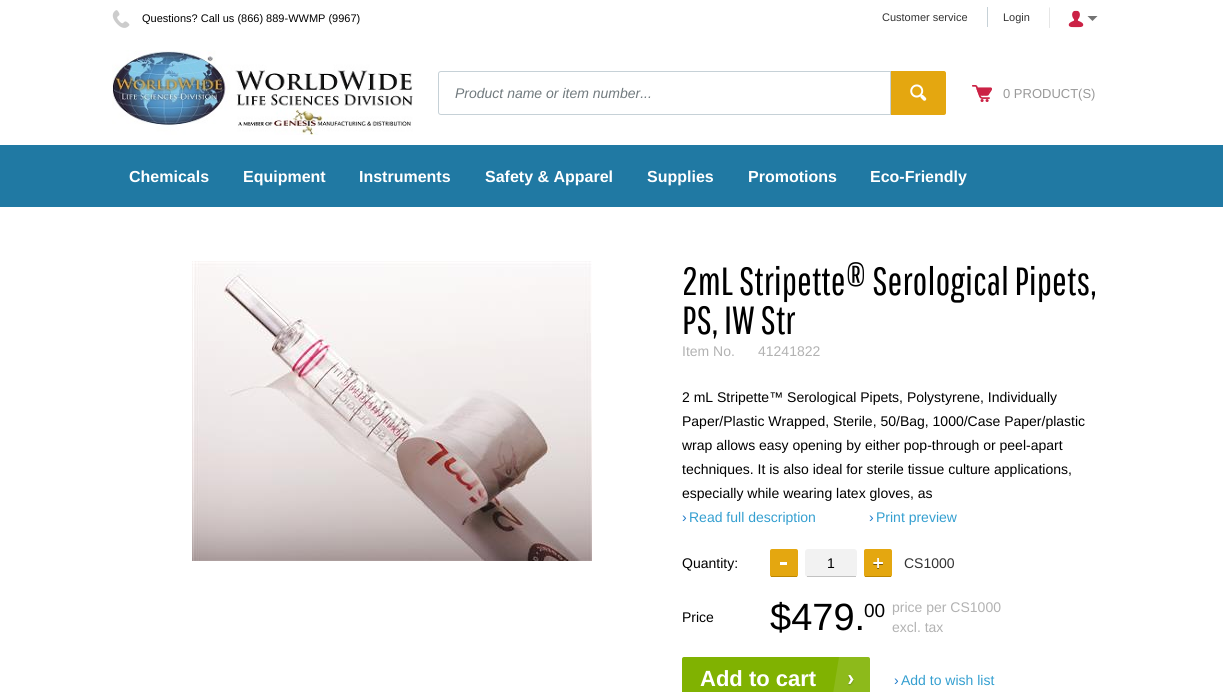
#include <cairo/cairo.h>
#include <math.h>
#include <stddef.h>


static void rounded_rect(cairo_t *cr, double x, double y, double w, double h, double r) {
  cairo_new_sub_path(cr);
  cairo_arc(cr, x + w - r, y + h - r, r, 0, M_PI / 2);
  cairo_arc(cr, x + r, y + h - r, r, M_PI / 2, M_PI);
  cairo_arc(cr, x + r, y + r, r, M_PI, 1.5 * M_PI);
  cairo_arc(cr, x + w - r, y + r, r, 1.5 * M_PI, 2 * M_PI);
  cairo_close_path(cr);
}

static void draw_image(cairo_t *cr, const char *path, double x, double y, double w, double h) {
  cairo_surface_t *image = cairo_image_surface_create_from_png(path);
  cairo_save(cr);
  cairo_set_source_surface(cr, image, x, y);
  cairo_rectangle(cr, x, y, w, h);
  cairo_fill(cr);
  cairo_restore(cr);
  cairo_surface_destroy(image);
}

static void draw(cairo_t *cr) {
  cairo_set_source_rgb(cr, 1, 1, 1);
  cairo_paint(cr);
  draw_image(cr, "images/1.png", 112, 10, 18, 18);
  cairo_set_source_rgb(cr, 198 / 255.0, 209 / 255.0, 215 / 255.0);
  cairo_rectangle(cr, 987, 7, 1, 20);
  cairo_fill(cr);
  cairo_set_source_rgb(cr, 230 / 255.0, 230 / 255.0, 230 / 255.0);
  cairo_new_path(cr);
  cairo_move_to(cr, 1049, 28);
  cairo_line_to(cr, 1049, 7);
  cairo_line_to(cr, 1050, 8);
  cairo_line_to(cr, 1050, 28);
  cairo_close_path(cr);
  cairo_fill(cr);
  draw_image(cr, "images/2.png", 1068, 10, 16, 18);
  draw_image(cr, "images/3.png", 1087, 16, 11, 5);
  draw_image(cr, "images/4.png", 112, 50, 301, 85);
  cairo_new_path(cr);
  cairo_move_to(cr, 441, 71.5);
  cairo_line_to(cr, 890.5, 71.5);
  cairo_line_to(cr, 890.5, 114.5);
  cairo_line_to(cr, 441, 114.5);
  cairo_curve_to(cr, 439.5, 114.5, 438.5, 113.5, 438.5, 112);
  cairo_line_to(cr, 438.5, 74);
  cairo_curve_to(cr, 438.5, 72.5, 439.5, 71.5, 441, 71.5);
  cairo_close_path(cr);
  cairo_set_source_rgb(cr, 198 / 255.0, 209 / 255.0, 215 / 255.0);
  cairo_set_line_width(cr, 1);
  cairo_stroke(cr);
  cairo_set_source_rgb(cr, 228 / 255.0, 167 / 255.0, 16 / 255.0);
  cairo_new_path(cr);
  cairo_move_to(cr, 891, 71);
  cairo_line_to(cr, 944, 71);
  cairo_curve_to(cr, 945, 71, 946, 72, 946, 73);
  cairo_line_to(cr, 946, 113);
  cairo_curve_to(cr, 946, 114, 945, 115, 944, 115);
  cairo_line_to(cr, 891, 115);
  cairo_close_path(cr);
  cairo_fill(cr);
  draw_image(cr, "images/5.png", 910, 84, 17, 17);
  draw_image(cr, "images/6.png", 972, 85, 20, 17);
  cairo_set_source_rgb(cr, 32 / 255.0, 121 / 255.0, 163 / 255.0);
  cairo_rectangle(cr, 0, 145, 1223, 62);
  cairo_fill(cr);
  draw_image(cr, "images/7.png", 192, 261, 400, 300);
  cairo_set_source_rgb(cr, 242 / 255.0, 242 / 255.0, 242 / 255.0);
  rounded_rect(cr, 805, 549, 52, 28, 3);
  cairo_fill(cr);
  cairo_set_source_rgb(cr, 194 / 255.0, 194 / 255.0, 194 / 255.0);
  cairo_rectangle(cr, 807, 576, 49, 1);
  cairo_fill(cr);
  cairo_set_source_rgb(cr, 228 / 255.0, 167 / 255.0, 16 / 255.0);
  rounded_rect(cr, 770, 549, 28, 28, 2);
  cairo_fill(cr);
  cairo_set_source_rgb(cr, 188 / 255.0, 134 / 255.0, 0);
  cairo_rectangle(cr, 771, 576, 26, 1);
  cairo_fill(cr);
  cairo_set_source_rgb(cr, 1, 1, 1);
  cairo_rectangle(cr, 780, 562, 7, 3);
  cairo_fill(cr);
  cairo_set_source_rgb(cr, 228 / 255.0, 167 / 255.0, 16 / 255.0);
  rounded_rect(cr, 864, 549, 28, 28, 2);
  cairo_fill(cr);
  cairo_set_source_rgb(cr, 188 / 255.0, 134 / 255.0, 0);
  cairo_rectangle(cr, 865, 576, 26, 1);
  cairo_fill(cr);
  draw_image(cr, "images/8.png", 873, 558, 10, 11);
  cairo_set_source_rgb(cr, 128 / 255.0, 178 / 255.0, 1 / 255.0);
  rounded_rect(cr, 682, 657, 188, 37, 2);
  cairo_fill(cr);
  draw_image(cr, "images/9.png", 848, 675, 6, 11);
  draw_image(cr, "images/10.png", 833, 657, 37, 35);
  cairo_select_font_face(cr, "Liberation Sans", CAIRO_FONT_SLANT_NORMAL, CAIRO_FONT_WEIGHT_NORMAL);
  cairo_set_font_size(cr, 11);
  cairo_set_source_rgb(cr, 0, 0, 0);
  cairo_move_to(cr, 142, 22);
  cairo_show_text(cr, "Questions? Call us (866) 889-WWMP (9967)");
  cairo_set_source_rgb(cr, 51 / 255.0, 51 / 255.0, 51 / 255.0);
  cairo_move_to(cr, 882, 21);
  cairo_show_text(cr, "Customer service");
  cairo_move_to(cr, 1003, 21);
  cairo_show_text(cr, "Login");
  cairo_select_font_face(cr, "Liberation Sans", CAIRO_FONT_SLANT_ITALIC, CAIRO_FONT_WEIGHT_NORMAL);
  cairo_set_font_size(cr, 14);
  cairo_set_source_rgb(cr, 113 / 255.0, 122 / 255.0, 126 / 255.0);
  cairo_move_to(cr, 455, 98);
  cairo_show_text(cr, "Product name or item number...");
  cairo_select_font_face(cr, "Liberation Sans", CAIRO_FONT_SLANT_NORMAL, CAIRO_FONT_WEIGHT_NORMAL);
  cairo_set_font_size(cr, 13);
  cairo_set_source_rgb(cr, 153 / 255.0, 153 / 255.0, 153 / 255.0);
  cairo_move_to(cr, 1003, 98);
  cairo_show_text(cr, "0 PRODUCT(S)");
  cairo_select_font_face(cr, "Liberation Sans", CAIRO_FONT_SLANT_NORMAL, CAIRO_FONT_WEIGHT_BOLD);
  cairo_set_font_size(cr, 16);
  cairo_set_source_rgb(cr, 1, 1, 1);
  cairo_move_to(cr, 129, 182);
  cairo_show_text(cr, "Chemicals");
  cairo_move_to(cr, 243, 182);
  cairo_show_text(cr, "Equipment");
  cairo_move_to(cr, 359, 182);
  cairo_show_text(cr, "Instruments");
  cairo_move_to(cr, 485, 182);
  cairo_show_text(cr, "Safety & Apparel");
  cairo_move_to(cr, 647, 182);
  cairo_show_text(cr, "Supplies");
  cairo_move_to(cr, 748, 182);
  cairo_show_text(cr, "Promotions");
  cairo_move_to(cr, 870, 182);
  cairo_show_text(cr, "Eco-Friendly");
  cairo_select_font_face(cr, "Pathway Gothic One", CAIRO_FONT_SLANT_NORMAL, CAIRO_FONT_WEIGHT_NORMAL);
  cairo_set_font_size(cr, 39.25);
  cairo_set_source_rgb(cr, 0, 0, 0);
  cairo_move_to(cr, 682, 295);
  cairo_show_text(cr, "2mL Stripette® Serological Pipets,");
  cairo_move_to(cr, 682, 334);
  cairo_show_text(cr, "PS, IW Str");
  cairo_select_font_face(cr, "Liberation Sans", CAIRO_FONT_SLANT_NORMAL, CAIRO_FONT_WEIGHT_NORMAL);
  cairo_set_font_size(cr, 14);
  cairo_set_source_rgb(cr, 178 / 255.0, 178 / 255.0, 178 / 255.0);
  cairo_move_to(cr, 682, 356);
  cairo_show_text(cr, "Item No.");
  cairo_move_to(cr, 758, 356);
  cairo_show_text(cr, "41241822");
  cairo_set_source_rgb(cr, 0, 0, 0);
  cairo_move_to(cr, 682, 402);
  cairo_show_text(cr, "2 mL Stripette™ Serological Pipets, Polystyrene, Individually");
  cairo_move_to(cr, 682, 426);
  cairo_show_text(cr, "Paper/Plastic Wrapped, Sterile, 50/Bag, 1000/Case Paper/plastic");
  cairo_move_to(cr, 682, 450);
  cairo_show_text(cr, "wrap allows easy opening by either pop-through or peel-apart");
  cairo_move_to(cr, 682, 474);
  cairo_show_text(cr, "techniques. It is also ideal for sterile tissue culture applications,");
  cairo_move_to(cr, 682, 498);
  cairo_show_text(cr, "especially while wearing latex gloves, as");
  cairo_set_source_rgb(cr, 31 / 255.0, 123 / 255.0, 201 / 255.0);
  cairo_move_to(cr, 682, 522);
  cairo_show_text(cr, "›");
  cairo_set_source_rgb(cr, 52 / 255.0, 159 / 255.0, 208 / 255.0);
  cairo_move_to(cr, 689, 522);
  cairo_show_text(cr, "Read full description");
  cairo_set_source_rgb(cr, 31 / 255.0, 123 / 255.0, 201 / 255.0);
  cairo_move_to(cr, 869, 522);
  cairo_show_text(cr, "›");
  cairo_set_source_rgb(cr, 52 / 255.0, 159 / 255.0, 208 / 255.0);
  cairo_move_to(cr, 876, 522);
  cairo_show_text(cr, "Print preview");
  cairo_set_source_rgb(cr, 0, 0, 0);
  cairo_move_to(cr, 682, 568);
  cairo_show_text(cr, "Quantity:");
  cairo_move_to(cr, 827, 568);
  cairo_show_text(cr, "1");
  cairo_set_source_rgb(cr, 51 / 255.0, 51 / 255.0, 51 / 255.0);
  cairo_move_to(cr, 904, 568);
  cairo_show_text(cr, "CS1000");
  cairo_set_source_rgb(cr, 0, 0, 0);
  cairo_move_to(cr, 682, 622);
  cairo_show_text(cr, "Price");
  cairo_set_font_size(cr, 38);
  cairo_move_to(cr, 770, 630);
  cairo_show_text(cr, "$479.");
  cairo_set_font_size(cr, 19);
  cairo_move_to(cr, 864, 617);
  cairo_show_text(cr, "00");
  cairo_set_font_size(cr, 14);
  cairo_set_source_rgb(cr, 178 / 255.0, 178 / 255.0, 178 / 255.0);
  cairo_move_to(cr, 892, 612);
  cairo_show_text(cr, "price per CS1000");
  cairo_move_to(cr, 892, 632);
  cairo_show_text(cr, "excl. tax");
  cairo_select_font_face(cr, "Liberation Sans", CAIRO_FONT_SLANT_NORMAL, CAIRO_FONT_WEIGHT_BOLD);
  cairo_set_font_size(cr, 22);
  cairo_set_source_rgb(cr, 1, 1, 1);
  cairo_move_to(cr, 700, 686);
  cairo_show_text(cr, "Add to cart");
  cairo_select_font_face(cr, "Liberation Sans", CAIRO_FONT_SLANT_NORMAL, CAIRO_FONT_WEIGHT_NORMAL);
  cairo_set_font_size(cr, 14);
  cairo_set_source_rgb(cr, 31 / 255.0, 123 / 255.0, 201 / 255.0);
  cairo_move_to(cr, 894, 685);
  cairo_show_text(cr, "›");
  cairo_set_source_rgb(cr, 52 / 255.0, 159 / 255.0, 208 / 255.0);
  cairo_move_to(cr, 901, 685);
  cairo_show_text(cr, "Add to wish list");
}

int main(void) {
  cairo_surface_t *surface = cairo_image_surface_create(CAIRO_FORMAT_RGB24, 1223, 692);
  cairo_t *cr = cairo_create(surface);
  cairo_font_options_t *options = cairo_font_options_create();
  cairo_font_options_set_hint_metrics(options, CAIRO_HINT_METRICS_OFF);
  cairo_font_options_set_hint_style(options, CAIRO_HINT_STYLE_NONE);
  cairo_set_font_options(cr, options);
  cairo_set_miter_limit(cr, 4);
  draw(cr);
  cairo_surface_write_to_png(surface, "out.png");
  cairo_font_options_destroy(options);
  cairo_destroy(cr);
  cairo_surface_destroy(surface);
  return 0;
}
